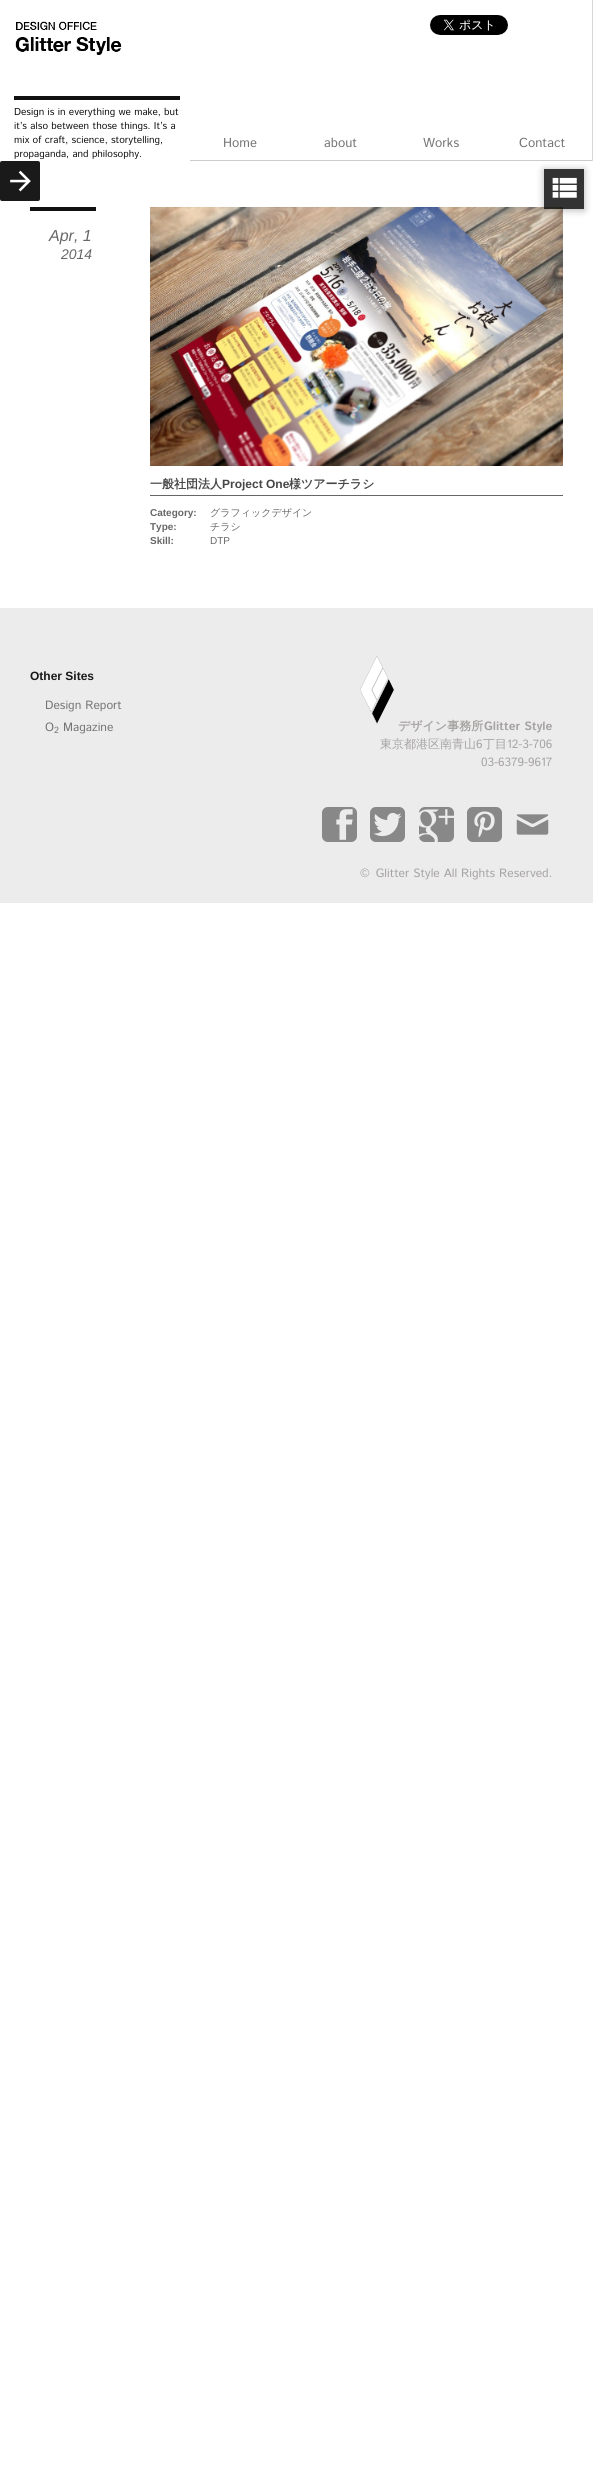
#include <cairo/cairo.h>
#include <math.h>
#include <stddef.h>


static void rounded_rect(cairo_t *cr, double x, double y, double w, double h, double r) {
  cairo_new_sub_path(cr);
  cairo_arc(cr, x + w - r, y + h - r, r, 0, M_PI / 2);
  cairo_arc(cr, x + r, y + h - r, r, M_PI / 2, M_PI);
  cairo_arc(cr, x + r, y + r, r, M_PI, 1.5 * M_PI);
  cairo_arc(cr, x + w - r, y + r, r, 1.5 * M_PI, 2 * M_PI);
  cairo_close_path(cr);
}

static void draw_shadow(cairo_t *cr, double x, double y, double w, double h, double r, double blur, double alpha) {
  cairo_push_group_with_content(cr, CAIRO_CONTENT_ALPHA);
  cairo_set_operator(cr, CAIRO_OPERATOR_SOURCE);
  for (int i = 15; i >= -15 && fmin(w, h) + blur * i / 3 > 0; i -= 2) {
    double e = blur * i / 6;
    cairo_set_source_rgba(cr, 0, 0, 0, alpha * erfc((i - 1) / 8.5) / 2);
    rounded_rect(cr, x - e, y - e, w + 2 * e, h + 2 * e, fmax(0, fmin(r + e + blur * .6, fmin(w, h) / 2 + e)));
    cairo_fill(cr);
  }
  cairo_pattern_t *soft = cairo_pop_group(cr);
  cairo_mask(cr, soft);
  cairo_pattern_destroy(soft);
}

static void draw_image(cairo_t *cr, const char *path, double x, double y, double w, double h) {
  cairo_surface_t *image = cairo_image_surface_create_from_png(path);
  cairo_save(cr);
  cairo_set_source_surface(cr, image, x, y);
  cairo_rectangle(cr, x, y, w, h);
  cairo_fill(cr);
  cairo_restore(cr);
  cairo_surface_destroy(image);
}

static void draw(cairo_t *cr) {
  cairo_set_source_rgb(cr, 1, 1, 1);
  cairo_paint(cr);
  cairo_set_source_rgb(cr, 214 / 255.0, 214 / 255.0, 214 / 255.0);
  cairo_rectangle(cr, 592, 0, 1, 161);
  cairo_fill(cr);
  draw_image(cr, "images/1.png", 430, 15, 78, 20);
  cairo_set_source_rgb(cr, 17 / 255.0, 17 / 255.0, 17 / 255.0);
  cairo_rectangle(cr, 14, 96, 166, 4);
  cairo_fill(cr);
  draw_image(cr, "images/2.png", 15, 21, 107, 34);
  cairo_set_source_rgb(cr, 204 / 255.0, 204 / 255.0, 204 / 255.0);
  cairo_rectangle(cr, 190, 160, 402, 1);
  cairo_fill(cr);
  cairo_set_source_rgb(cr, 26 / 255.0, 26 / 255.0, 26 / 255.0);
  rounded_rect(cr, 0, 161, 40, 40, 2);
  cairo_fill(cr);
  draw_image(cr, "images/3.png", 10, 170, 21, 22);
  draw_image(cr, "images/5.png", 150, 207, 413, 259);
  cairo_save(cr);
  cairo_set_fill_rule(cr, CAIRO_FILL_RULE_EVEN_ODD);
  cairo_new_path(cr);
  cairo_move_to(cr, 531, 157);
  cairo_line_to(cr, 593, 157);
  cairo_line_to(cr, 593, 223);
  cairo_line_to(cr, 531, 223);
  cairo_close_path(cr);
  cairo_move_to(cr, 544, 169);
  cairo_line_to(cr, 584, 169);
  cairo_line_to(cr, 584, 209);
  cairo_line_to(cr, 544, 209);
  cairo_close_path(cr);
  cairo_clip(cr);
  cairo_set_source_rgb(cr, 0, 0, 0);
  draw_shadow(cr, 544, 170, 40, 40, 0, 4, 0.3);
  cairo_restore(cr);
  cairo_set_source_rgba(cr, 0, 0, 0, 0.8);
  cairo_rectangle(cr, 544, 169, 40, 40);
  cairo_fill(cr);
  draw_image(cr, "images/4.png", 552, 177, 25, 21);
  cairo_set_source_rgb(cr, 17 / 255.0, 17 / 255.0, 17 / 255.0);
  cairo_rectangle(cr, 30, 207, 66, 4);
  cairo_fill(cr);
  cairo_set_source_rgb(cr, 102 / 255.0, 102 / 255.0, 102 / 255.0);
  cairo_rectangle(cr, 150, 495, 413, 1);
  cairo_fill(cr);
  cairo_set_source_rgb(cr, 236 / 255.0, 236 / 255.0, 236 / 255.0);
  cairo_rectangle(cr, 0, 608, 593, 295);
  cairo_fill(cr);
  draw_image(cr, "images/6.png", 360, 656, 34, 68);
  draw_image(cr, "images/7.png", 322, 807, 35, 35);
  draw_image(cr, "images/8.png", 370, 807, 35, 35);
  draw_image(cr, "images/9.png", 419, 807, 35, 35);
  draw_image(cr, "images/10.png", 467, 807, 35, 35);
  draw_image(cr, "images/11.png", 516, 814, 33, 21);
  cairo_select_font_face(cr, "Istok Web", CAIRO_FONT_SLANT_NORMAL, CAIRO_FONT_WEIGHT_NORMAL);
  cairo_set_font_size(cr, 10);
  cairo_set_source_rgb(cr, 17 / 255.0, 17 / 255.0, 17 / 255.0);
  cairo_move_to(cr, 14, 115);
  cairo_show_text(cr, "Design is in everything we make, but");
  cairo_move_to(cr, 14, 129);
  cairo_show_text(cr, "it’s also between those things. It’s a");
  cairo_move_to(cr, 14, 143);
  cairo_show_text(cr, "mix of craft, science, storytelling,");
  cairo_move_to(cr, 14, 157);
  cairo_show_text(cr, "propaganda, and philosophy.");
  cairo_set_font_size(cr, 13);
  cairo_set_source_rgb(cr, 117 / 255.0, 117 / 255.0, 117 / 255.0);
  cairo_move_to(cr, 223, 147);
  cairo_show_text(cr, "Home");
  cairo_move_to(cr, 324, 147);
  cairo_show_text(cr, "about");
  cairo_move_to(cr, 423, 147);
  cairo_show_text(cr, "Works");
  cairo_move_to(cr, 519, 147);
  cairo_show_text(cr, "Contact");
  cairo_select_font_face(cr, "Liberation Sans", CAIRO_FONT_SLANT_ITALIC, CAIRO_FONT_WEIGHT_NORMAL);
  cairo_set_font_size(cr, 16);
  cairo_set_source_rgb(cr, 103 / 255.0, 103 / 255.0, 103 / 255.0);
  cairo_move_to(cr, 49, 241);
  cairo_show_text(cr, "Apr, 1");
  cairo_set_font_size(cr, 14);
  cairo_move_to(cr, 61, 259);
  cairo_show_text(cr, "2014");
  cairo_select_font_face(cr, "WenQuanYi Zen Hei", CAIRO_FONT_SLANT_NORMAL, CAIRO_FONT_WEIGHT_BOLD);
  cairo_set_font_size(cr, 12);
  cairo_set_source_rgb(cr, 70 / 255.0, 70 / 255.0, 70 / 255.0);
  cairo_move_to(cr, 150, 488);
  cairo_show_text(cr, "一般社団法人");
  cairo_select_font_face(cr, "Liberation Sans", CAIRO_FONT_SLANT_NORMAL, CAIRO_FONT_WEIGHT_BOLD);
  cairo_move_to(cr, 222, 488);
  cairo_show_text(cr, "Project One");
  cairo_select_font_face(cr, "WenQuanYi Zen Hei", CAIRO_FONT_SLANT_NORMAL, CAIRO_FONT_WEIGHT_BOLD);
  cairo_move_to(cr, 289, 488);
  cairo_show_text(cr, "様ツアーチラシ");
  cairo_select_font_face(cr, "Liberation Sans", CAIRO_FONT_SLANT_NORMAL, CAIRO_FONT_WEIGHT_BOLD);
  cairo_set_font_size(cr, 10);
  cairo_set_source_rgb(cr, 103 / 255.0, 103 / 255.0, 103 / 255.0);
  cairo_move_to(cr, 150, 516);
  cairo_show_text(cr, "Category:");
  cairo_select_font_face(cr, "WenQuanYi Zen Hei Medium", CAIRO_FONT_SLANT_NORMAL, CAIRO_FONT_WEIGHT_NORMAL);
  cairo_move_to(cr, 210, 516);
  cairo_show_text(cr, "グラフィックデザイン");
  cairo_select_font_face(cr, "Liberation Sans", CAIRO_FONT_SLANT_NORMAL, CAIRO_FONT_WEIGHT_BOLD);
  cairo_move_to(cr, 150, 530);
  cairo_show_text(cr, "Type:");
  cairo_select_font_face(cr, "WenQuanYi Zen Hei Medium", CAIRO_FONT_SLANT_NORMAL, CAIRO_FONT_WEIGHT_NORMAL);
  cairo_move_to(cr, 210, 530);
  cairo_show_text(cr, "チラシ");
  cairo_select_font_face(cr, "Liberation Sans", CAIRO_FONT_SLANT_NORMAL, CAIRO_FONT_WEIGHT_BOLD);
  cairo_move_to(cr, 150, 544);
  cairo_show_text(cr, "Skill:");
  cairo_select_font_face(cr, "Liberation Sans", CAIRO_FONT_SLANT_NORMAL, CAIRO_FONT_WEIGHT_NORMAL);
  cairo_move_to(cr, 210, 544);
  cairo_show_text(cr, "DTP");
  cairo_select_font_face(cr, "Liberation Sans", CAIRO_FONT_SLANT_NORMAL, CAIRO_FONT_WEIGHT_BOLD);
  cairo_set_font_size(cr, 12);
  cairo_set_source_rgb(cr, 25 / 255.0, 25 / 255.0, 25 / 255.0);
  cairo_move_to(cr, 30, 680);
  cairo_show_text(cr, "Other Sites");
  cairo_select_font_face(cr, "Istok Web", CAIRO_FONT_SLANT_NORMAL, CAIRO_FONT_WEIGHT_NORMAL);
  cairo_set_source_rgb(cr, 117 / 255.0, 117 / 255.0, 117 / 255.0);
  cairo_move_to(cr, 45, 709);
  cairo_show_text(cr, "Design Report");
  cairo_move_to(cr, 45, 731);
  cairo_show_text(cr, "O");
  cairo_set_font_size(cr, 9);
  cairo_move_to(cr, 54, 733);
  cairo_show_text(cr, "2");
  cairo_set_font_size(cr, 12);
  cairo_move_to(cr, 63, 731);
  cairo_show_text(cr, "Magazine");
  cairo_select_font_face(cr, "WenQuanYi Zen Hei", CAIRO_FONT_SLANT_NORMAL, CAIRO_FONT_WEIGHT_BOLD);
  cairo_set_source_rgb(cr, 167 / 255.0, 163 / 255.0, 163 / 255.0);
  cairo_move_to(cr, 398, 730);
  cairo_show_text(cr, "デザイン事務所");
  cairo_select_font_face(cr, "Istok Web", CAIRO_FONT_SLANT_NORMAL, CAIRO_FONT_WEIGHT_BOLD);
  cairo_move_to(cr, 484, 730);
  cairo_show_text(cr, "Glitter Style");
  cairo_select_font_face(cr, "WenQuanYi Zen Hei Medium", CAIRO_FONT_SLANT_NORMAL, CAIRO_FONT_WEIGHT_NORMAL);
  cairo_move_to(cr, 380, 748);
  cairo_show_text(cr, "東京都港区南青山");
  cairo_select_font_face(cr, "Istok Web", CAIRO_FONT_SLANT_NORMAL, CAIRO_FONT_WEIGHT_NORMAL);
  cairo_move_to(cr, 476, 748);
  cairo_show_text(cr, "6");
  cairo_select_font_face(cr, "WenQuanYi Zen Hei Medium", CAIRO_FONT_SLANT_NORMAL, CAIRO_FONT_WEIGHT_NORMAL);
  cairo_move_to(cr, 483, 748);
  cairo_show_text(cr, "丁目");
  cairo_select_font_face(cr, "Istok Web", CAIRO_FONT_SLANT_NORMAL, CAIRO_FONT_WEIGHT_NORMAL);
  cairo_move_to(cr, 507, 748);
  cairo_show_text(cr, "12-3-706");
  cairo_move_to(cr, 481, 766);
  cairo_show_text(cr, "03-6379-9617");
  cairo_move_to(cr, 360, 877);
  cairo_show_text(cr, "© Glitter Style All Rights Reserved.");
}

int main(void) {
  cairo_surface_t *surface = cairo_image_surface_create(CAIRO_FORMAT_RGB24, 593, 2485);
  cairo_t *cr = cairo_create(surface);
  cairo_font_options_t *options = cairo_font_options_create();
  cairo_font_options_set_hint_metrics(options, CAIRO_HINT_METRICS_OFF);
  cairo_font_options_set_hint_style(options, CAIRO_HINT_STYLE_NONE);
  cairo_set_font_options(cr, options);
  cairo_set_miter_limit(cr, 4);
  draw(cr);
  cairo_surface_write_to_png(surface, "out.png");
  cairo_font_options_destroy(options);
  cairo_destroy(cr);
  cairo_surface_destroy(surface);
  return 0;
}
